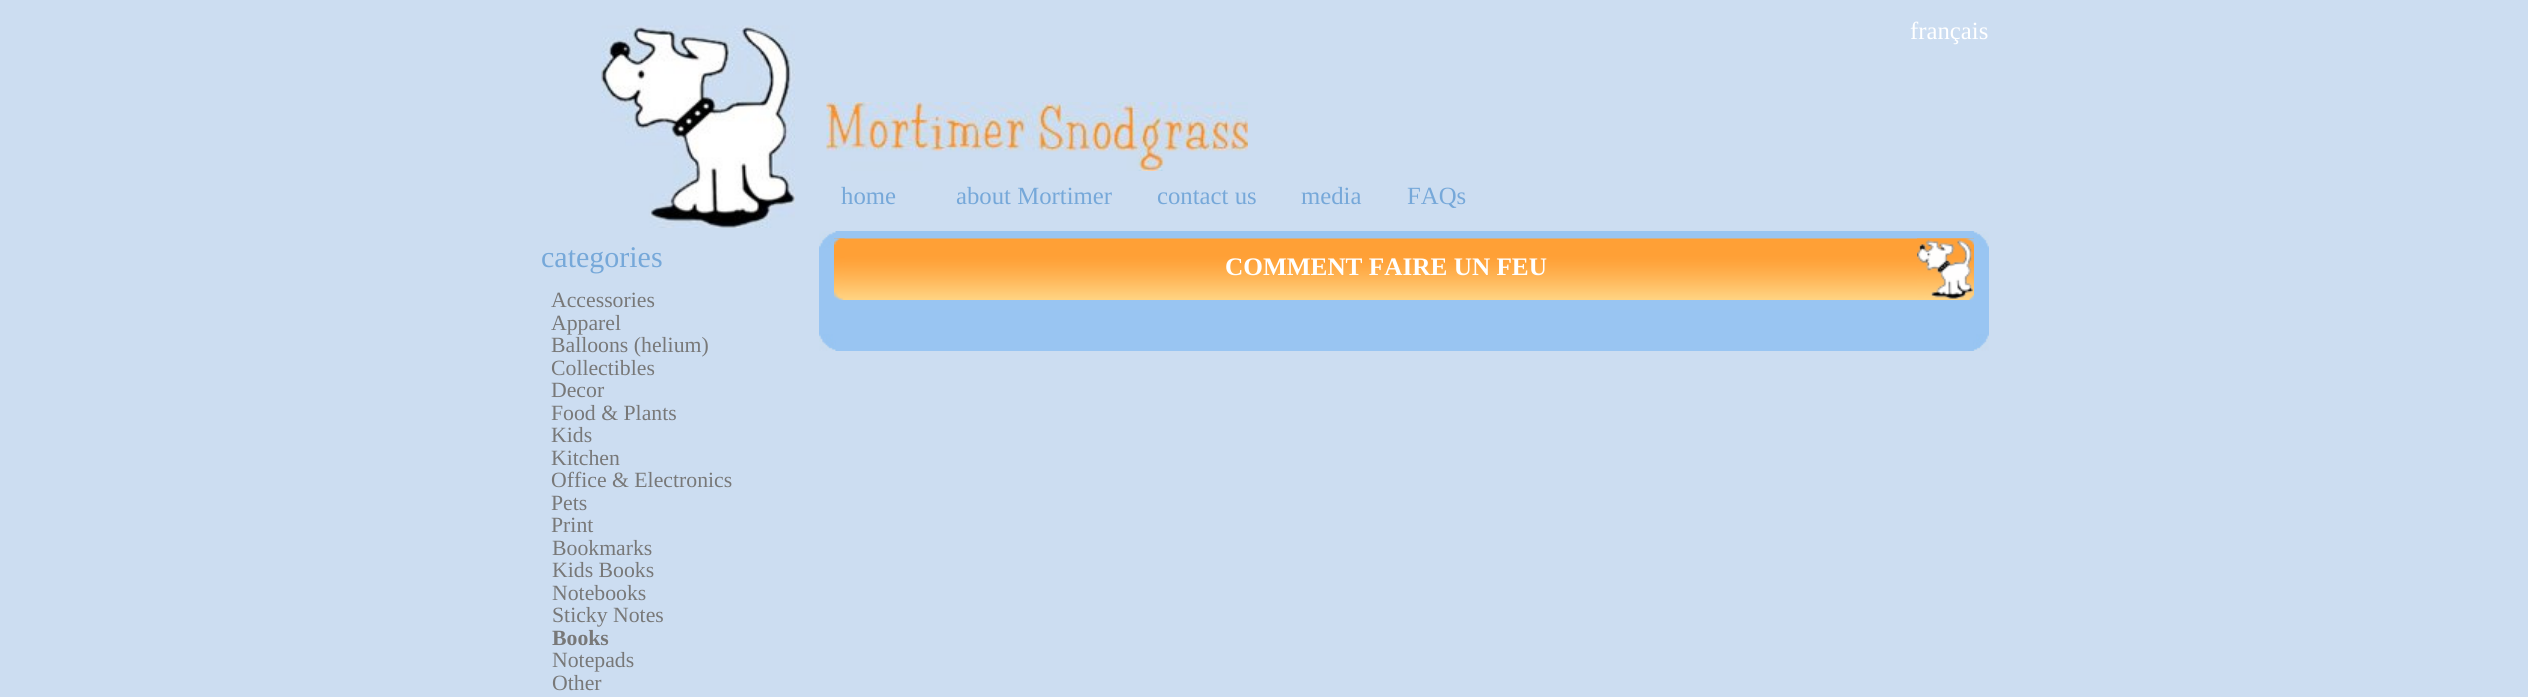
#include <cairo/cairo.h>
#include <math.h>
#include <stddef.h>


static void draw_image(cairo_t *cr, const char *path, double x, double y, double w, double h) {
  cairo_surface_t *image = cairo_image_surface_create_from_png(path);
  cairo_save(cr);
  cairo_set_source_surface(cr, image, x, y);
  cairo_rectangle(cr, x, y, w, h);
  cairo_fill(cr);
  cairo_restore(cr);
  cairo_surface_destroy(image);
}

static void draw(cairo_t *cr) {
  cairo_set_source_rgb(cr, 204 / 255.0, 221 / 255.0, 241 / 255.0);
  cairo_paint(cr);
  draw_image(cr, "images/1.png", 601, 25, 194, 203);
  draw_image(cr, "images/2.png", 826, 102, 422, 69);
  cairo_set_source_rgb(cr, 153 / 255.0, 197 / 255.0, 242 / 255.0);
  cairo_rectangle(cr, 819, 231, 1170, 120);
  cairo_fill(cr);
  draw_image(cr, "images/3.png", 819, 231, 17, 17);
  draw_image(cr, "images/4.png", 1973, 231, 16, 17);
  draw_image(cr, "images/5.png", 819, 334, 17, 17);
  draw_image(cr, "images/6.png", 1973, 334, 16, 17);
  draw_image(cr, "images/7.png", 834, 238, 1140, 62);
  draw_image(cr, "images/8.png", 834, 238, 11, 62);
  draw_image(cr, "images/9.png", 1917, 238, 57, 62);
  cairo_select_font_face(cr, "Liberation Serif", CAIRO_FONT_SLANT_NORMAL, CAIRO_FONT_WEIGHT_NORMAL);
  cairo_set_font_size(cr, 24.75);
  cairo_set_source_rgb(cr, 1, 1, 1);
  cairo_move_to(cr, 1910, 39);
  cairo_show_text(cr, "français");
  cairo_set_source_rgb(cr, 118 / 255.0, 168 / 255.0, 217 / 255.0);
  cairo_move_to(cr, 841, 204);
  cairo_show_text(cr, "home");
  cairo_move_to(cr, 956, 204);
  cairo_show_text(cr, "about Mortimer");
  cairo_move_to(cr, 1157, 204);
  cairo_show_text(cr, "contact us");
  cairo_move_to(cr, 1301, 204);
  cairo_show_text(cr, "media");
  cairo_move_to(cr, 1407, 204);
  cairo_show_text(cr, "FAQs");
  cairo_set_font_size(cr, 30);
  cairo_move_to(cr, 541, 267);
  cairo_show_text(cr, "categories");
  cairo_set_font_size(cr, 21.75);
  cairo_set_source_rgb(cr, 120 / 255.0, 120 / 255.0, 120 / 255.0);
  cairo_move_to(cr, 551, 307);
  cairo_show_text(cr, "Accessories");
  cairo_move_to(cr, 551, 330);
  cairo_show_text(cr, "Apparel");
  cairo_move_to(cr, 551, 352);
  cairo_show_text(cr, "Balloons (helium)");
  cairo_move_to(cr, 551, 375);
  cairo_show_text(cr, "Collectibles");
  cairo_move_to(cr, 551, 397);
  cairo_show_text(cr, "Decor");
  cairo_move_to(cr, 551, 420);
  cairo_show_text(cr, "Food & Plants");
  cairo_move_to(cr, 551, 442);
  cairo_show_text(cr, "Kids");
  cairo_move_to(cr, 551, 465);
  cairo_show_text(cr, "Kitchen");
  cairo_move_to(cr, 551, 487);
  cairo_show_text(cr, "Office & Electronics");
  cairo_move_to(cr, 551, 510);
  cairo_show_text(cr, "Pets");
  cairo_move_to(cr, 551, 532);
  cairo_show_text(cr, "Print");
  cairo_move_to(cr, 552, 555);
  cairo_show_text(cr, "Bookmarks");
  cairo_move_to(cr, 552, 577);
  cairo_show_text(cr, "Kids Books");
  cairo_move_to(cr, 552, 600);
  cairo_show_text(cr, "Notebooks");
  cairo_move_to(cr, 552, 622);
  cairo_show_text(cr, "Sticky Notes");
  cairo_select_font_face(cr, "Liberation Serif", CAIRO_FONT_SLANT_NORMAL, CAIRO_FONT_WEIGHT_BOLD);
  cairo_move_to(cr, 552, 645);
  cairo_show_text(cr, "Books");
  cairo_select_font_face(cr, "Liberation Serif", CAIRO_FONT_SLANT_NORMAL, CAIRO_FONT_WEIGHT_NORMAL);
  cairo_move_to(cr, 552, 667);
  cairo_show_text(cr, "Notepads");
  cairo_move_to(cr, 552, 690);
  cairo_show_text(cr, "Other");
  cairo_select_font_face(cr, "Liberation Serif", CAIRO_FONT_SLANT_NORMAL, CAIRO_FONT_WEIGHT_BOLD);
  cairo_set_font_size(cr, 25.25);
  cairo_set_source_rgb(cr, 1, 1, 1);
  cairo_move_to(cr, 1225, 275);
  cairo_show_text(cr, "COMMENT FAIRE UN FEU");
}

int main(void) {
  cairo_surface_t *surface = cairo_image_surface_create(CAIRO_FORMAT_RGB24, 2528, 697);
  cairo_t *cr = cairo_create(surface);
  cairo_font_options_t *options = cairo_font_options_create();
  cairo_font_options_set_hint_metrics(options, CAIRO_HINT_METRICS_OFF);
  cairo_font_options_set_hint_style(options, CAIRO_HINT_STYLE_NONE);
  cairo_set_font_options(cr, options);
  cairo_set_miter_limit(cr, 4);
  draw(cr);
  cairo_surface_write_to_png(surface, "out.png");
  cairo_font_options_destroy(options);
  cairo_destroy(cr);
  cairo_surface_destroy(surface);
  return 0;
}
